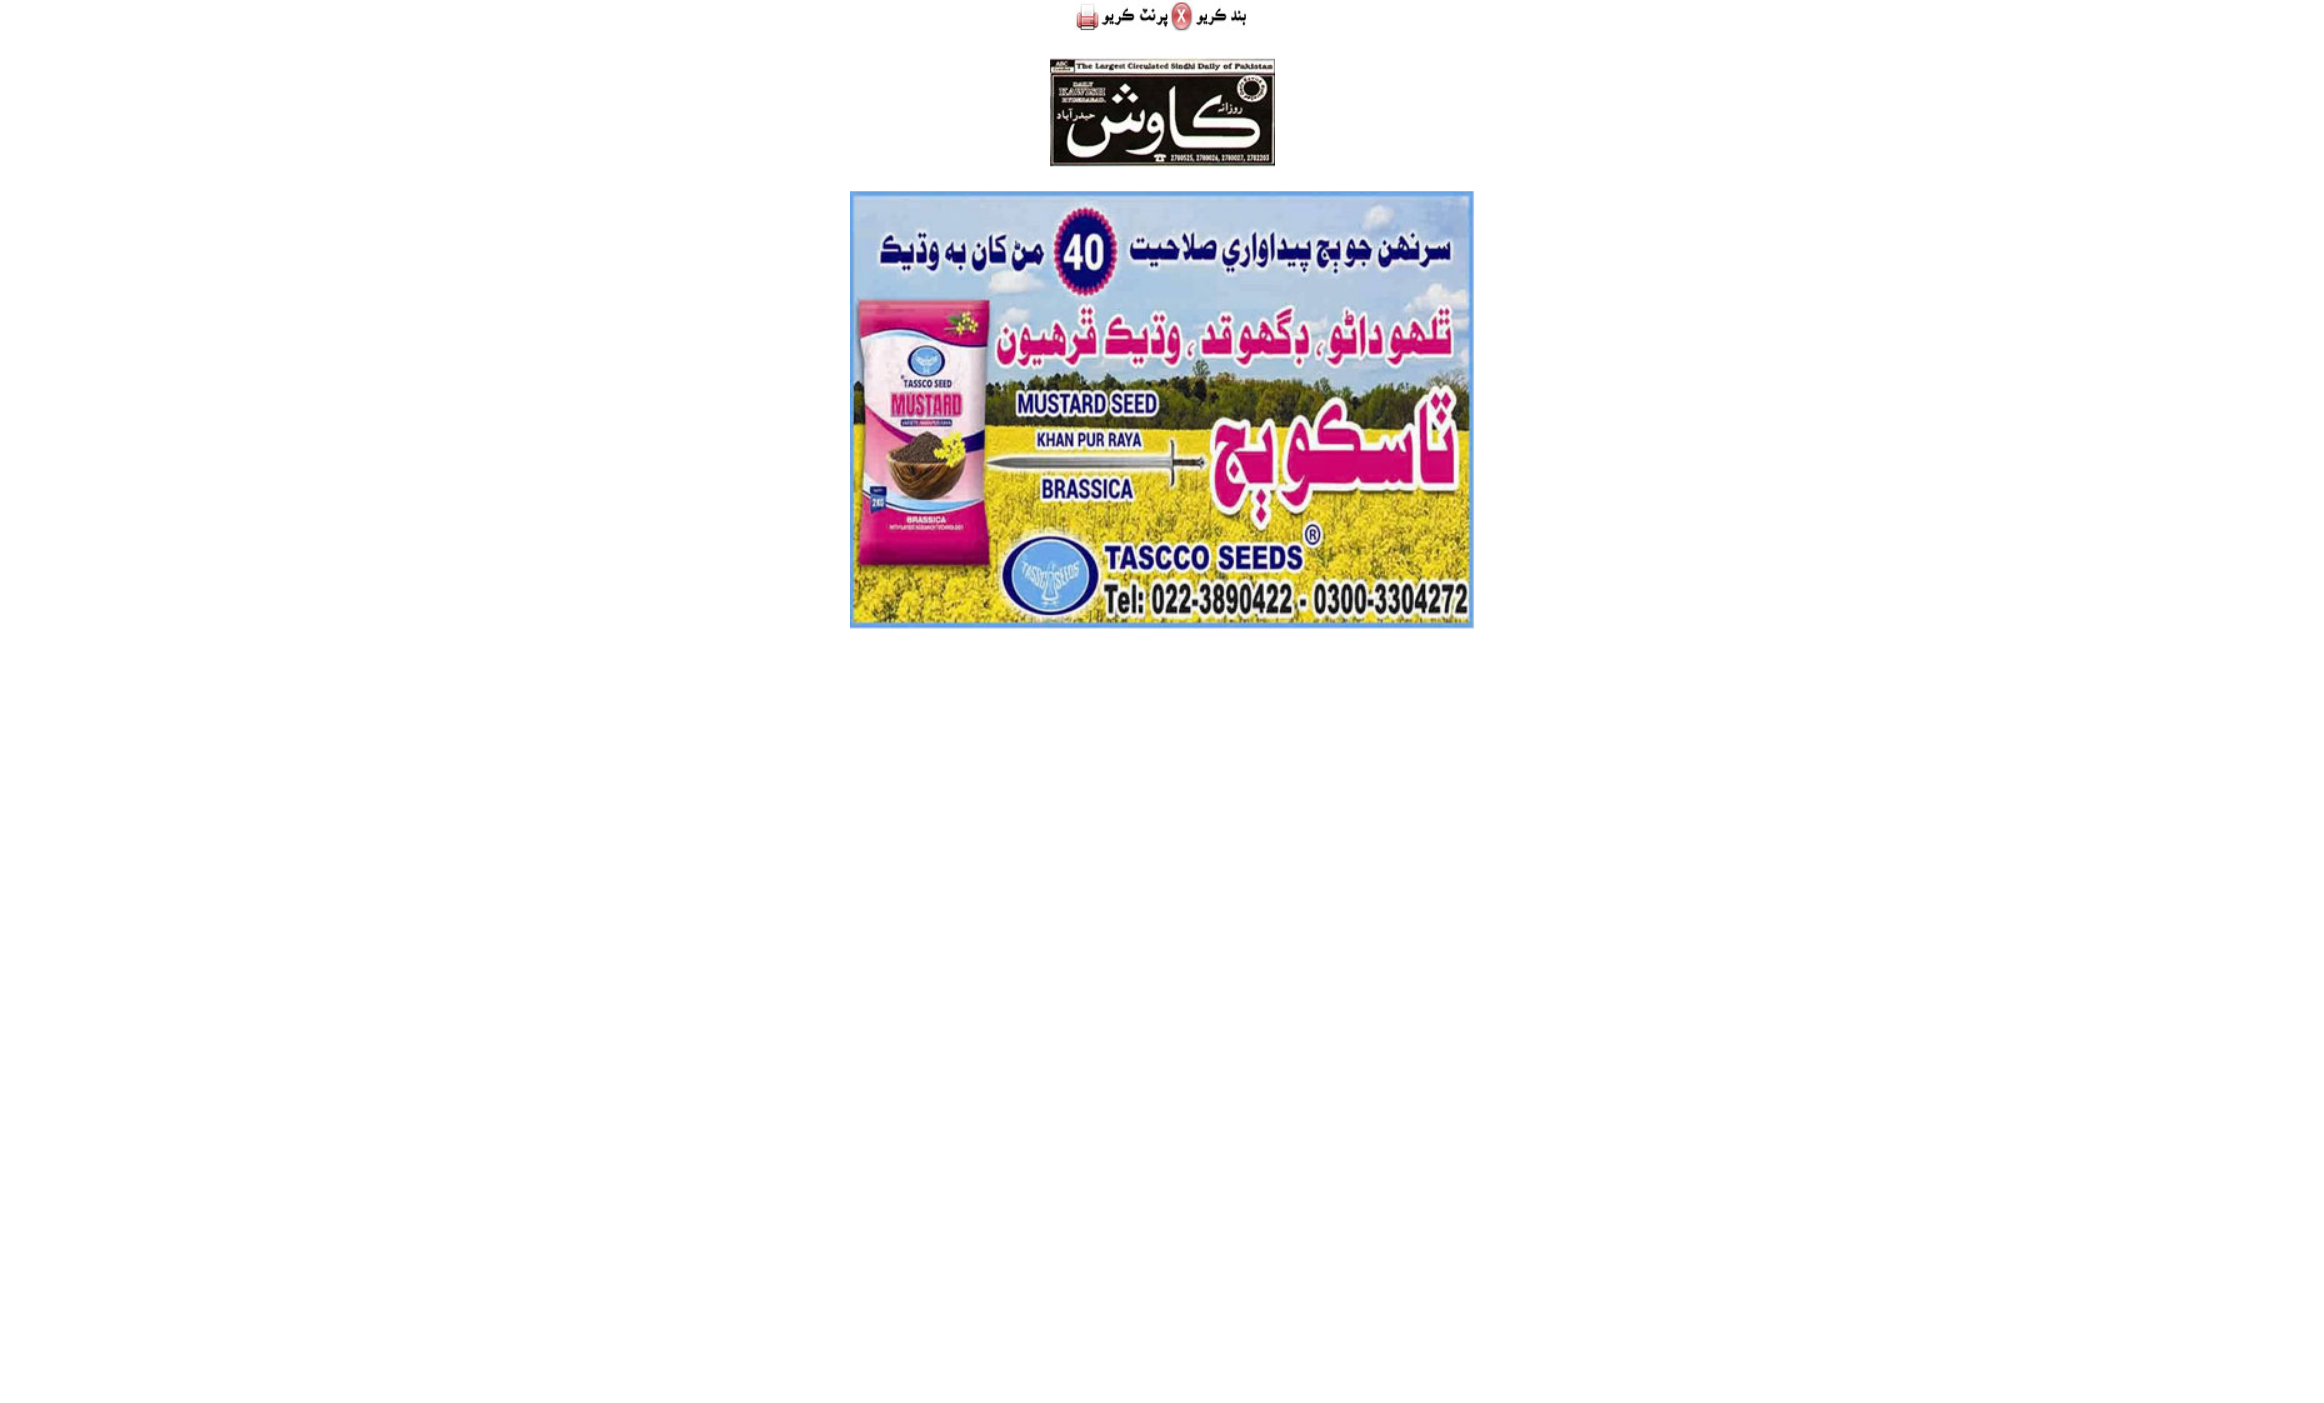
#include <cairo/cairo.h>
#include <math.h>
#include <stddef.h>


static void draw_image(cairo_t *cr, const char *path, double x, double y, double w, double h) {
  cairo_surface_t *image = cairo_image_surface_create_from_png(path);
  cairo_save(cr);
  cairo_set_source_surface(cr, image, x, y);
  cairo_rectangle(cr, x, y, w, h);
  cairo_fill(cr);
  cairo_restore(cr);
  cairo_surface_destroy(image);
}

static void draw(cairo_t *cr) {
  cairo_set_source_rgb(cr, 1, 1, 1);
  cairo_paint(cr);
  draw_image(cr, "images/1.png", 1074, 0, 95, 31);
  draw_image(cr, "images/2.png", 1170, 0, 77, 32);
  draw_image(cr, "images/3.png", 1050, 57, 225, 110);
  draw_image(cr, "images/4.png", 850, 191, 625, 438);
}

int main(void) {
  cairo_surface_t *surface = cairo_image_surface_create(CAIRO_FORMAT_RGB24, 2324, 1403);
  cairo_t *cr = cairo_create(surface);
  cairo_font_options_t *options = cairo_font_options_create();
  cairo_font_options_set_hint_metrics(options, CAIRO_HINT_METRICS_OFF);
  cairo_font_options_set_hint_style(options, CAIRO_HINT_STYLE_NONE);
  cairo_set_font_options(cr, options);
  cairo_set_miter_limit(cr, 4);
  draw(cr);
  cairo_surface_write_to_png(surface, "out.png");
  cairo_font_options_destroy(options);
  cairo_destroy(cr);
  cairo_surface_destroy(surface);
  return 0;
}
